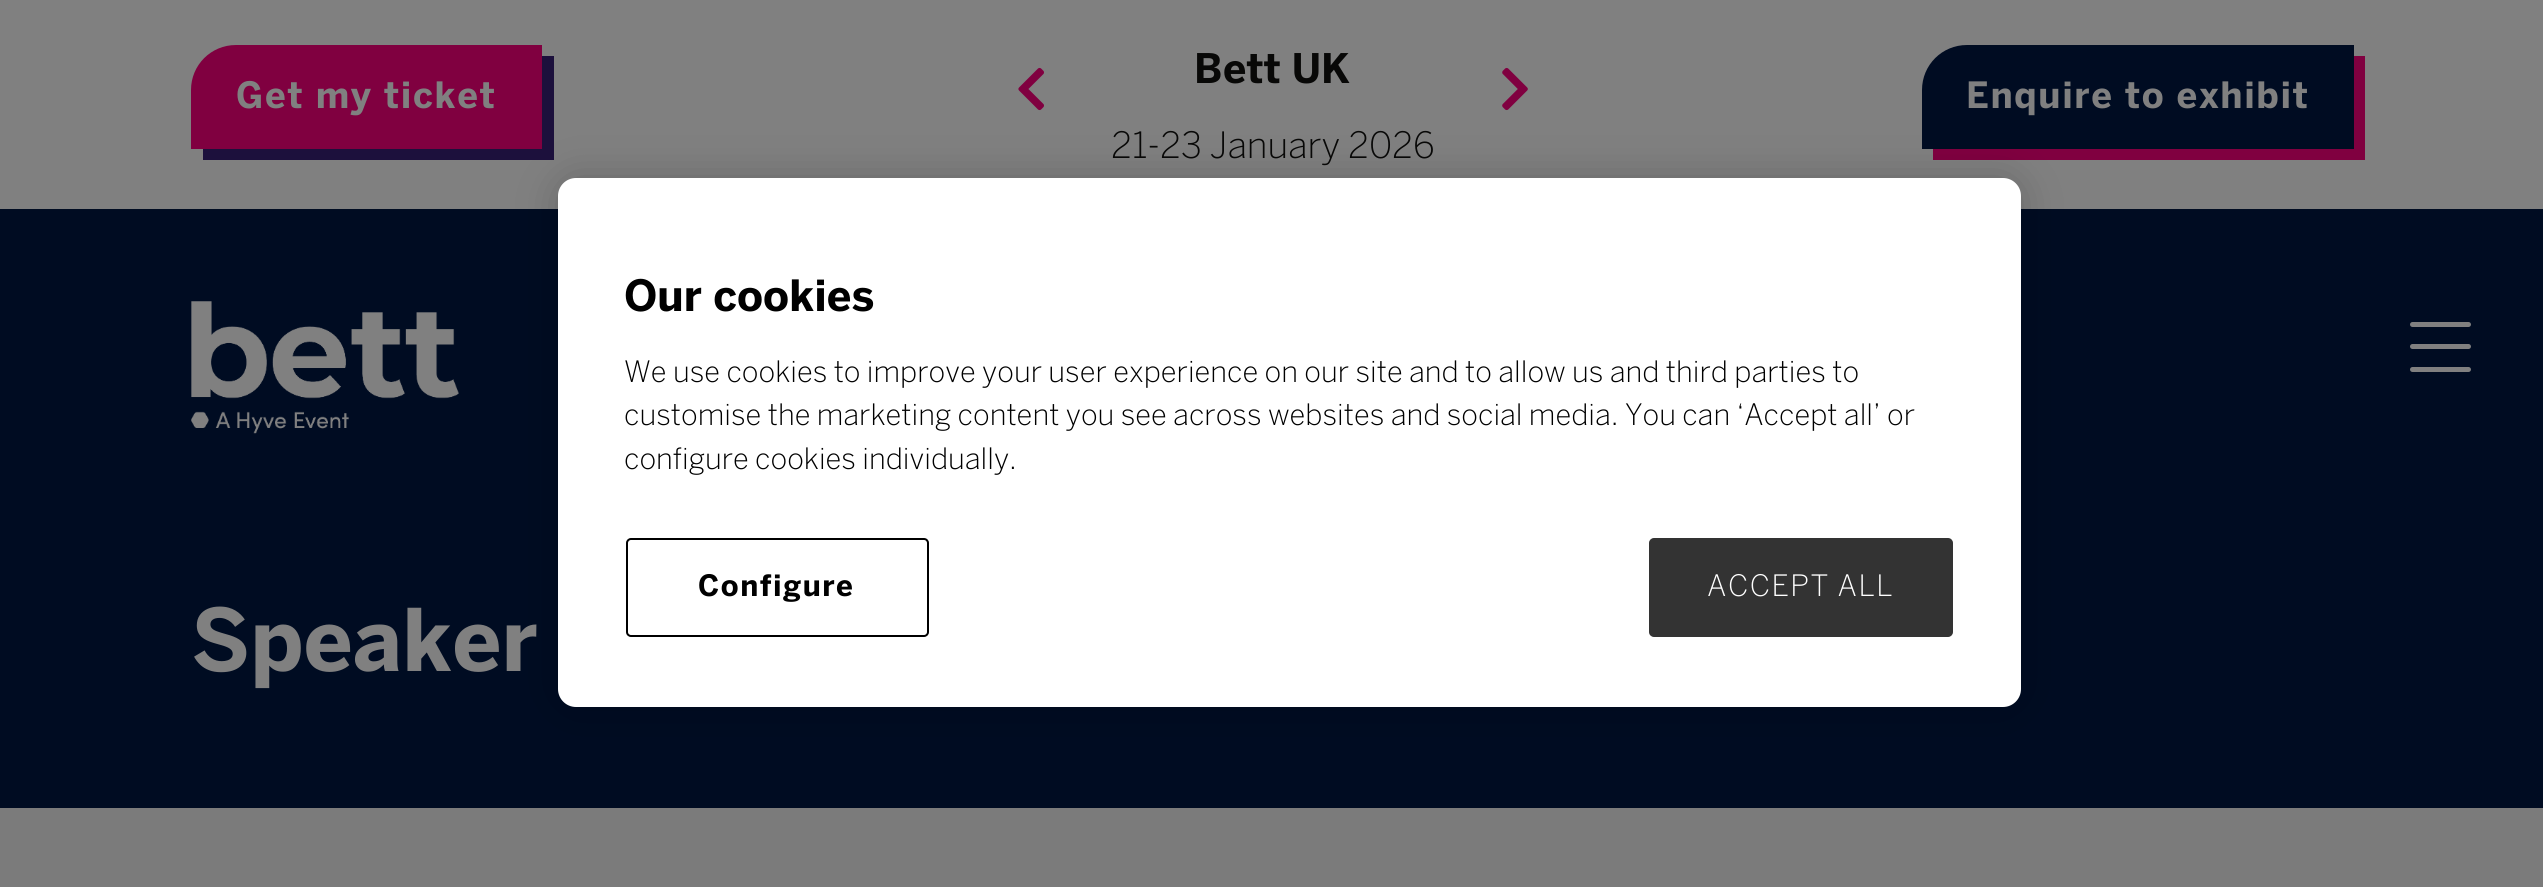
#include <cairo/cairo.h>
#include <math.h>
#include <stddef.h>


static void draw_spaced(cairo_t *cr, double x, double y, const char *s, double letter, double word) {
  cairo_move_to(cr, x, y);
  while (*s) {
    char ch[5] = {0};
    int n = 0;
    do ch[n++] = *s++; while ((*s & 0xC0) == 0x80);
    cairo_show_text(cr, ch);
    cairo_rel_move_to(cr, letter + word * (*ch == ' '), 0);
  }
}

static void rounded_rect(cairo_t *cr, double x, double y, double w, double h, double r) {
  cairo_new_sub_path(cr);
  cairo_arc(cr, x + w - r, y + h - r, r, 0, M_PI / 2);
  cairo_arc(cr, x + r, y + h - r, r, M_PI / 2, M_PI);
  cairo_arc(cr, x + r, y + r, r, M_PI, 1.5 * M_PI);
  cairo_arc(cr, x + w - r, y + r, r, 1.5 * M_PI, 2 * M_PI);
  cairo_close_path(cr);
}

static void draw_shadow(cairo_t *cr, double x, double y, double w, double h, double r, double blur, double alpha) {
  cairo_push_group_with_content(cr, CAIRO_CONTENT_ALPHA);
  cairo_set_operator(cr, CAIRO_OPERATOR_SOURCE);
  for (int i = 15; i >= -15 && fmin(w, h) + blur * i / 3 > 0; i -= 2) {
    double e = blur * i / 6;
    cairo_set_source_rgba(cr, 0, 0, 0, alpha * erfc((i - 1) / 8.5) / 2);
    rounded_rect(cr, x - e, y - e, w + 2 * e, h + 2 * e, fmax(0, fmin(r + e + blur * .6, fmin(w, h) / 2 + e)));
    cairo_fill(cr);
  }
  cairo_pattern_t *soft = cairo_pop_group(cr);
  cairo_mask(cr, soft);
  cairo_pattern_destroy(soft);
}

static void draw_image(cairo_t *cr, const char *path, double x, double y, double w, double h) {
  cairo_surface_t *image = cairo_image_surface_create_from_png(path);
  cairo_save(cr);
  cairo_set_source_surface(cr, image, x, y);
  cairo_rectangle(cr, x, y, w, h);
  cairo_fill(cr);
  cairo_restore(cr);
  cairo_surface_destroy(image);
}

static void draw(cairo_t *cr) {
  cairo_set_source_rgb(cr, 123 / 255.0, 123 / 255.0, 123 / 255.0);
  cairo_paint(cr);
  cairo_set_source_rgb(cr, 128 / 255.0, 128 / 255.0, 128 / 255.0);
  cairo_rectangle(cr, 0, 0, 2543, 209);
  cairo_fill(cr);
  draw_image(cr, "images/1.png", 1018, 67, 26, 44);
  draw_image(cr, "images/2.png", 1502, 67, 26, 44);
  cairo_set_source_rgb(cr, 28 / 255.0, 16 / 255.0, 60 / 255.0);
  cairo_new_path(cr);
  cairo_move_to(cr, 203, 148);
  cairo_line_to(cr, 203, 160);
  cairo_line_to(cr, 554, 160);
  cairo_line_to(cr, 554, 56);
  cairo_line_to(cr, 542, 56);
  cairo_line_to(cr, 542, 148);
  cairo_close_path(cr);
  cairo_fill(cr);
  cairo_set_source_rgb(cr, 128 / 255.0, 0, 64 / 255.0);
  cairo_new_path(cr);
  cairo_move_to(cr, 236, 45);
  cairo_line_to(cr, 542, 45);
  cairo_line_to(cr, 542, 149);
  cairo_line_to(cr, 191, 149);
  cairo_line_to(cr, 191, 90);
  cairo_curve_to(cr, 191, 65, 211, 45, 236, 45);
  cairo_close_path(cr);
  cairo_fill(cr);
  cairo_new_path(cr);
  cairo_move_to(cr, 1933, 148);
  cairo_line_to(cr, 1933, 160);
  cairo_line_to(cr, 2365, 160);
  cairo_line_to(cr, 2365, 56);
  cairo_line_to(cr, 2354, 56);
  cairo_line_to(cr, 2354, 148);
  cairo_close_path(cr);
  cairo_fill(cr);
  cairo_set_source_rgb(cr, 0, 12 / 255.0, 34 / 255.0);
  cairo_new_path(cr);
  cairo_move_to(cr, 1967, 45);
  cairo_line_to(cr, 2354, 45);
  cairo_line_to(cr, 2354, 149);
  cairo_line_to(cr, 1922, 149);
  cairo_line_to(cr, 1922, 90);
  cairo_curve_to(cr, 1922, 65, 1942, 45, 1967, 45);
  cairo_close_path(cr);
  cairo_fill(cr);
  cairo_rectangle(cr, 0, 209, 2543, 599);
  cairo_fill(cr);
  draw_image(cr, "images/3.png", 191, 301, 268, 133);
  cairo_set_source_rgb(cr, 128 / 255.0, 128 / 255.0, 128 / 255.0);
  rounded_rect(cr, 2410, 344, 61, 5, 2.5);
  cairo_fill(cr);
  rounded_rect(cr, 2410, 322, 61, 5, 2.5);
  cairo_fill(cr);
  rounded_rect(cr, 2410, 367, 61, 5, 2.5);
  cairo_fill(cr);
  cairo_set_source_rgb(cr, 0, 0, 0);
  draw_shadow(cr, 558, 178, 1463, 529, 18, 20, 0.2);
  cairo_set_source_rgb(cr, 1, 1, 1);
  rounded_rect(cr, 558, 178, 1463, 529, 18);
  cairo_fill(cr);
  rounded_rect(cr, 627, 539, 301, 97, 4);
  cairo_set_source_rgb(cr, 0, 0, 0);
  cairo_stroke(cr);
  cairo_set_source_rgb(cr, 51 / 255.0, 51 / 255.0, 51 / 255.0);
  rounded_rect(cr, 1650, 539, 302, 97, 4);
  cairo_fill_preserve(cr);
  cairo_stroke(cr);
  cairo_select_font_face(cr, "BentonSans", CAIRO_FONT_SLANT_NORMAL, CAIRO_FONT_WEIGHT_BOLD);
  cairo_set_font_size(cr, 40.5);
  cairo_set_source_rgb(cr, 8 / 255.0, 8 / 255.0, 7 / 255.0);
  cairo_move_to(cr, 1194, 83);
  cairo_show_text(cr, "Bett UK");
  cairo_select_font_face(cr, "BentonSans Light", CAIRO_FONT_SLANT_NORMAL, CAIRO_FONT_WEIGHT_NORMAL);
  cairo_set_font_size(cr, 36);
  cairo_move_to(cr, 1111, 158);
  cairo_show_text(cr, "21-23 January 2026");
  cairo_select_font_face(cr, "BentonSans", CAIRO_FONT_SLANT_NORMAL, CAIRO_FONT_WEIGHT_BOLD);
  cairo_set_source_rgb(cr, 128 / 255.0, 128 / 255.0, 128 / 255.0);
  draw_spaced(cr, 236, 108, "Get my ticket", 1.6, 0);
  draw_spaced(cr, 1966, 108, "Enquire to exhibit", 1.6, 0);
  cairo_set_font_size(cr, 85.5);
  cairo_move_to(cr, 191, 671);
  cairo_show_text(cr, "Speaker");
  cairo_set_font_size(cr, 42.75);
  cairo_set_source_rgb(cr, 0, 0, 0);
  cairo_move_to(cr, 624, 311);
  cairo_show_text(cr, "Our cookies");
  cairo_select_font_face(cr, "BentonSans Light", CAIRO_FONT_SLANT_NORMAL, CAIRO_FONT_WEIGHT_NORMAL);
  cairo_set_font_size(cr, 29.25);
  cairo_move_to(cr, 624, 382);
  cairo_show_text(cr, "We use cookies to improve your user experience on our site and to allow us and third parties to");
  cairo_move_to(cr, 624, 425);
  cairo_show_text(cr, "customise the marketing content you see across websites and social media. You can ‘Accept all’ or");
  cairo_move_to(cr, 624, 469);
  cairo_show_text(cr, "configure cookies individually.");
  cairo_select_font_face(cr, "BentonSans", CAIRO_FONT_SLANT_NORMAL, CAIRO_FONT_WEIGHT_BOLD);
  draw_spaced(cr, 698, 596, "Configure", 1.5, 0);
  cairo_select_font_face(cr, "BentonSans Light", CAIRO_FONT_SLANT_NORMAL, CAIRO_FONT_WEIGHT_NORMAL);
  cairo_set_source_rgb(cr, 1, 1, 1);
  draw_spaced(cr, 1707, 596, "ACCEPT ALL", 1.5, 0);
}

int main(void) {
  cairo_surface_t *surface = cairo_image_surface_create(CAIRO_FORMAT_RGB24, 2543, 887);
  cairo_t *cr = cairo_create(surface);
  cairo_font_options_t *options = cairo_font_options_create();
  cairo_font_options_set_hint_metrics(options, CAIRO_HINT_METRICS_OFF);
  cairo_font_options_set_hint_style(options, CAIRO_HINT_STYLE_NONE);
  cairo_set_font_options(cr, options);
  cairo_set_miter_limit(cr, 4);
  draw(cr);
  cairo_surface_write_to_png(surface, "out.png");
  cairo_font_options_destroy(options);
  cairo_destroy(cr);
  cairo_surface_destroy(surface);
  return 0;
}
